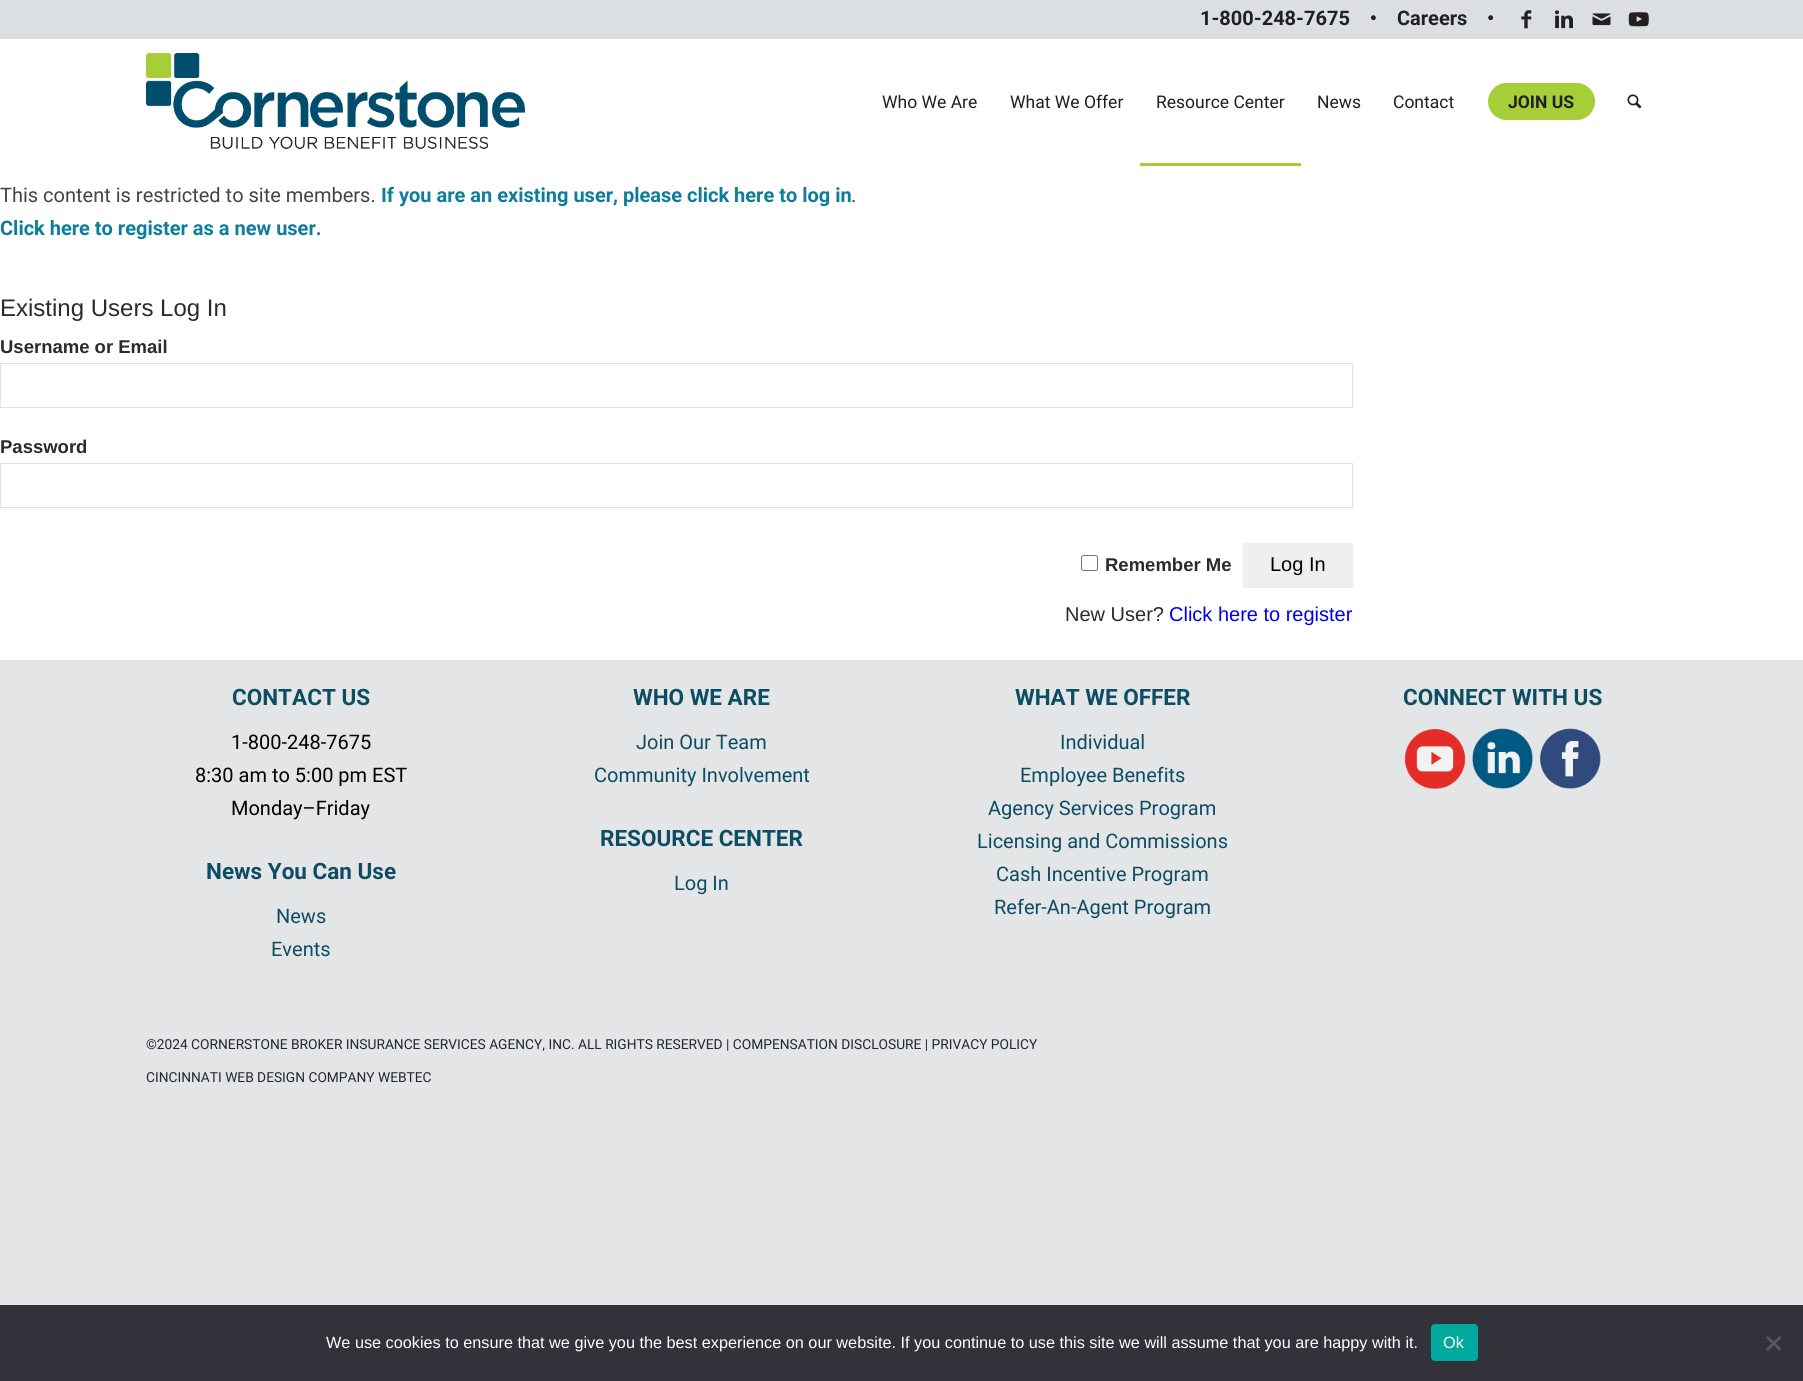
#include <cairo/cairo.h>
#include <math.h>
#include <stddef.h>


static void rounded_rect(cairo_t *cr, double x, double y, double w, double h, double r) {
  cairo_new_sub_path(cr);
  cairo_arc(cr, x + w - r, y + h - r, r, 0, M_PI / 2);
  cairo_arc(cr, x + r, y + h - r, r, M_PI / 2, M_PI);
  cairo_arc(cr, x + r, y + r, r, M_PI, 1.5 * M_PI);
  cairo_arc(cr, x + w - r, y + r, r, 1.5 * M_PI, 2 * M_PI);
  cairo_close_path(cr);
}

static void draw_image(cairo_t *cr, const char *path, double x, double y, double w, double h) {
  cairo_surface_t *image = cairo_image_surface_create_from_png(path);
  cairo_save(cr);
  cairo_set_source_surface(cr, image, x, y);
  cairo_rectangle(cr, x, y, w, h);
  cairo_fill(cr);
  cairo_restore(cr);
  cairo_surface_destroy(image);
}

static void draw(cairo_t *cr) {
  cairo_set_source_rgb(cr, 228 / 255.0, 229 / 255.0, 230 / 255.0);
  cairo_paint(cr);
  cairo_set_source_rgb(cr, 1, 1, 1);
  cairo_rectangle(cr, 0, 39, 1803, 621);
  cairo_fill(cr);
  cairo_set_source_rgb(cr, 220 / 255.0, 223 / 255.0, 225 / 255.0);
  cairo_rectangle(cr, 0, 0, 1803, 39);
  cairo_fill(cr);
  draw_image(cr, "images/1.png", 1521, 10, 11, 19);
  draw_image(cr, "images/2.png", 1555, 10, 18, 19);
  draw_image(cr, "images/3.png", 1592, 13, 19, 13);
  draw_image(cr, "images/4.png", 1628, 12, 21, 15);
  draw_image(cr, "images/5.png", 146, 53, 379, 96);
  cairo_set_source_rgb(cr, 166 / 255.0, 206 / 255.0, 57 / 255.0);
  cairo_rectangle(cr, 1140, 163, 161, 3);
  cairo_fill(cr);
  rounded_rect(cr, 1489.5, 84.5, 104, 34, 17);
  cairo_fill_preserve(cr);
  cairo_set_line_width(cr, 3);
  cairo_stroke(cr);
  draw_image(cr, "images/6.png", 1627, 94, 15, 15);
  cairo_rectangle(cr, 0.5, 363.5, 1352, 44);
  cairo_set_source_rgb(cr, 225 / 255.0, 225 / 255.0, 225 / 255.0);
  cairo_set_line_width(cr, 1);
  cairo_stroke(cr);
  cairo_rectangle(cr, 0.5, 463.5, 1352, 44);
  cairo_stroke(cr);
  rounded_rect(cr, 1081.5, 555.5, 16, 15, 2);
  cairo_set_source_rgb(cr, 118 / 255.0, 118 / 255.0, 118 / 255.0);
  cairo_stroke(cr);
  cairo_set_source_rgb(cr, 239 / 255.0, 239 / 255.0, 239 / 255.0);
  cairo_rectangle(cr, 1243, 543, 110, 45);
  cairo_fill(cr);
  draw_image(cr, "images/7.png", 1404, 729, 62, 60);
  draw_image(cr, "images/8.png", 1472, 728, 61, 61);
  draw_image(cr, "images/9.png", 1540, 728, 61, 61);
  cairo_set_source_rgb(cr, 50 / 255.0, 50 / 255.0, 58 / 255.0);
  cairo_rectangle(cr, 0, 1305, 1803, 76);
  cairo_fill(cr);
  cairo_set_source_rgb(cr, 0, 169 / 255.0, 157 / 255.0);
  rounded_rect(cr, 1431, 1324, 47, 37, 4);
  cairo_fill(cr);
  cairo_set_source_rgb(cr, 89 / 255.0, 89 / 255.0, 93 / 255.0);
  cairo_new_path(cr);
  cairo_move_to(cr, 1779.5, 1336);
  cairo_line_to(cr, 1781.5, 1337.5);
  cairo_line_to(cr, 1768, 1351);
  cairo_line_to(cr, 1766, 1349);
  cairo_close_path(cr);
  cairo_fill(cr);
  cairo_new_path(cr);
  cairo_move_to(cr, 1766, 1337.5);
  cairo_line_to(cr, 1768, 1336);
  cairo_line_to(cr, 1781.5, 1349);
  cairo_line_to(cr, 1779.5, 1351);
  cairo_close_path(cr);
  cairo_fill(cr);
  cairo_select_font_face(cr, "Roboto", CAIRO_FONT_SLANT_NORMAL, CAIRO_FONT_WEIGHT_BOLD);
  cairo_set_font_size(cr, 20);
  cairo_set_source_rgb(cr, 35 / 255.0, 31 / 255.0, 32 / 255.0);
  cairo_move_to(cr, 1200, 25);
  cairo_show_text(cr, "1-800-248-7675    •");
  cairo_move_to(cr, 1397, 25);
  cairo_show_text(cr, "Careers");
  cairo_move_to(cr, 1487, 25);
  cairo_show_text(cr, "•");
  cairo_select_font_face(cr, "Roboto", CAIRO_FONT_SLANT_NORMAL, CAIRO_FONT_WEIGHT_NORMAL);
  cairo_set_font_size(cr, 17.5);
  cairo_move_to(cr, 882, 108);
  cairo_show_text(cr, "Who We Are");
  cairo_move_to(cr, 1010, 108);
  cairo_show_text(cr, "What We Offer");
  cairo_move_to(cr, 1156, 108);
  cairo_show_text(cr, "Resource Center");
  cairo_move_to(cr, 1317, 108);
  cairo_show_text(cr, "News");
  cairo_move_to(cr, 1393, 108);
  cairo_show_text(cr, "Contact");
  cairo_select_font_face(cr, "Roboto", CAIRO_FONT_SLANT_NORMAL, CAIRO_FONT_WEIGHT_BOLD);
  cairo_move_to(cr, 1508, 108);
  cairo_show_text(cr, "JOIN US");
  cairo_select_font_face(cr, "Roboto", CAIRO_FONT_SLANT_NORMAL, CAIRO_FONT_WEIGHT_NORMAL);
  cairo_set_font_size(cr, 20);
  cairo_set_source_rgb(cr, 68 / 255.0, 68 / 255.0, 68 / 255.0);
  cairo_move_to(cr, 0, 202);
  cairo_show_text(cr, "This content is restricted to site members.");
  cairo_select_font_face(cr, "Roboto", CAIRO_FONT_SLANT_NORMAL, CAIRO_FONT_WEIGHT_BOLD);
  cairo_set_source_rgb(cr, 13 / 255.0, 125 / 255.0, 156 / 255.0);
  cairo_move_to(cr, 381, 202);
  cairo_show_text(cr, "If you are an existing user, please click here to log in");
  cairo_select_font_face(cr, "Roboto", CAIRO_FONT_SLANT_NORMAL, CAIRO_FONT_WEIGHT_NORMAL);
  cairo_set_source_rgb(cr, 68 / 255.0, 68 / 255.0, 68 / 255.0);
  cairo_move_to(cr, 851, 202);
  cairo_show_text(cr, ".");
  cairo_select_font_face(cr, "Roboto", CAIRO_FONT_SLANT_NORMAL, CAIRO_FONT_WEIGHT_BOLD);
  cairo_set_source_rgb(cr, 13 / 255.0, 125 / 255.0, 156 / 255.0);
  cairo_move_to(cr, 0, 235);
  cairo_show_text(cr, "Click here to register as a new user.");
  cairo_select_font_face(cr, "Liberation Sans", CAIRO_FONT_SLANT_NORMAL, CAIRO_FONT_WEIGHT_NORMAL);
  cairo_set_font_size(cr, 24);
  cairo_set_source_rgb(cr, 43 / 255.0, 43 / 255.0, 43 / 255.0);
  cairo_move_to(cr, 0, 316);
  cairo_show_text(cr, "Existing Users Log In");
  cairo_select_font_face(cr, "Liberation Sans", CAIRO_FONT_SLANT_NORMAL, CAIRO_FONT_WEIGHT_BOLD);
  cairo_set_font_size(cr, 18.5);
  cairo_move_to(cr, 0, 353);
  cairo_show_text(cr, "Username or Email");
  cairo_move_to(cr, 0, 453);
  cairo_show_text(cr, "Password");
  cairo_move_to(cr, 1105, 571);
  cairo_show_text(cr, "Remember Me");
  cairo_select_font_face(cr, "Liberation Sans", CAIRO_FONT_SLANT_NORMAL, CAIRO_FONT_WEIGHT_NORMAL);
  cairo_set_font_size(cr, 20);
  cairo_set_source_rgb(cr, 0, 0, 0);
  cairo_move_to(cr, 1270, 571);
  cairo_show_text(cr, "Log In");
  cairo_set_source_rgb(cr, 43 / 255.0, 43 / 255.0, 43 / 255.0);
  cairo_move_to(cr, 1065, 621);
  cairo_show_text(cr, "New User?");
  cairo_set_source_rgb(cr, 0, 0, 238 / 255.0);
  cairo_move_to(cr, 1169, 621);
  cairo_show_text(cr, "Click here to register");
  cairo_select_font_face(cr, "Roboto", CAIRO_FONT_SLANT_NORMAL, CAIRO_FONT_WEIGHT_BOLD);
  cairo_set_font_size(cr, 22.5);
  cairo_set_source_rgb(cr, 13 / 255.0, 77 / 255.0, 100 / 255.0);
  cairo_move_to(cr, 232, 705);
  cairo_show_text(cr, "CONTACT US");
  cairo_select_font_face(cr, "Roboto", CAIRO_FONT_SLANT_NORMAL, CAIRO_FONT_WEIGHT_NORMAL);
  cairo_set_font_size(cr, 20);
  cairo_set_source_rgb(cr, 0, 0, 0);
  cairo_move_to(cr, 231, 749);
  cairo_show_text(cr, "1-800-248-7675");
  cairo_move_to(cr, 195, 782);
  cairo_show_text(cr, "8:30 am to 5:00 pm EST");
  cairo_move_to(cr, 231, 815);
  cairo_show_text(cr, "Monday–Friday");
  cairo_select_font_face(cr, "Roboto", CAIRO_FONT_SLANT_NORMAL, CAIRO_FONT_WEIGHT_BOLD);
  cairo_set_font_size(cr, 22.5);
  cairo_set_source_rgb(cr, 13 / 255.0, 77 / 255.0, 100 / 255.0);
  cairo_move_to(cr, 206, 879);
  cairo_show_text(cr, "News You Can Use");
  cairo_select_font_face(cr, "Roboto", CAIRO_FONT_SLANT_NORMAL, CAIRO_FONT_WEIGHT_NORMAL);
  cairo_set_font_size(cr, 20);
  cairo_move_to(cr, 276, 923);
  cairo_show_text(cr, "News");
  cairo_move_to(cr, 271, 956);
  cairo_show_text(cr, "Events");
  cairo_select_font_face(cr, "Roboto", CAIRO_FONT_SLANT_NORMAL, CAIRO_FONT_WEIGHT_BOLD);
  cairo_set_font_size(cr, 22.5);
  cairo_move_to(cr, 633, 705);
  cairo_show_text(cr, "WHO WE ARE");
  cairo_select_font_face(cr, "Roboto", CAIRO_FONT_SLANT_NORMAL, CAIRO_FONT_WEIGHT_NORMAL);
  cairo_set_font_size(cr, 20);
  cairo_move_to(cr, 636, 749);
  cairo_show_text(cr, "Join Our Team");
  cairo_move_to(cr, 594, 782);
  cairo_show_text(cr, "Community Involvement");
  cairo_select_font_face(cr, "Roboto", CAIRO_FONT_SLANT_NORMAL, CAIRO_FONT_WEIGHT_BOLD);
  cairo_set_font_size(cr, 22.5);
  cairo_move_to(cr, 600, 846);
  cairo_show_text(cr, "RESOURCE CENTER");
  cairo_select_font_face(cr, "Roboto", CAIRO_FONT_SLANT_NORMAL, CAIRO_FONT_WEIGHT_NORMAL);
  cairo_set_font_size(cr, 20);
  cairo_move_to(cr, 674, 890);
  cairo_show_text(cr, "Log In");
  cairo_select_font_face(cr, "Roboto", CAIRO_FONT_SLANT_NORMAL, CAIRO_FONT_WEIGHT_BOLD);
  cairo_set_font_size(cr, 22.5);
  cairo_move_to(cr, 1015, 705);
  cairo_show_text(cr, "WHAT WE OFFER");
  cairo_select_font_face(cr, "Roboto", CAIRO_FONT_SLANT_NORMAL, CAIRO_FONT_WEIGHT_NORMAL);
  cairo_set_font_size(cr, 20);
  cairo_move_to(cr, 1060, 749);
  cairo_show_text(cr, "Individual");
  cairo_move_to(cr, 1020, 782);
  cairo_show_text(cr, "Employee Benefits");
  cairo_move_to(cr, 988, 815);
  cairo_show_text(cr, "Agency Services Program");
  cairo_move_to(cr, 977, 848);
  cairo_show_text(cr, "Licensing and Commissions");
  cairo_move_to(cr, 996, 881);
  cairo_show_text(cr, "Cash Incentive Program");
  cairo_move_to(cr, 994, 914);
  cairo_show_text(cr, "Refer-An-Agent Program");
  cairo_select_font_face(cr, "Roboto", CAIRO_FONT_SLANT_NORMAL, CAIRO_FONT_WEIGHT_BOLD);
  cairo_set_font_size(cr, 22.5);
  cairo_move_to(cr, 1403, 705);
  cairo_show_text(cr, "CONNECT WITH US");
  cairo_select_font_face(cr, "Roboto", CAIRO_FONT_SLANT_NORMAL, CAIRO_FONT_WEIGHT_NORMAL);
  cairo_set_font_size(cr, 13.75);
  cairo_set_source_rgb(cr, 33 / 255.0, 40 / 255.0, 48 / 255.0);
  cairo_move_to(cr, 146, 1049);
  cairo_show_text(cr, "©2024 CORNERSTONE BROKER INSURANCE SERVICES AGENCY, INC. ALL RIGHTS RESERVED | COMPENSATION DISCLOSURE | PRIVACY POLICY");
  cairo_move_to(cr, 146, 1082);
  cairo_show_text(cr, "CINCINNATI WEB DESIGN COMPANY WEBTEC");
  cairo_select_font_face(cr, "Liberation Sans", CAIRO_FONT_SLANT_NORMAL, CAIRO_FONT_WEIGHT_NORMAL);
  cairo_set_font_size(cr, 16.25);
  cairo_set_source_rgb(cr, 1, 1, 1);
  cairo_move_to(cr, 326, 1348);
  cairo_show_text(cr, "We use cookies to ensure that we give you the best experience on our website. If you continue to use this site we will assume that you are happy with it.");
  cairo_move_to(cr, 1443, 1348);
  cairo_show_text(cr, "Ok");
}

int main(void) {
  cairo_surface_t *surface = cairo_image_surface_create(CAIRO_FORMAT_RGB24, 1803, 1381);
  cairo_t *cr = cairo_create(surface);
  cairo_font_options_t *options = cairo_font_options_create();
  cairo_font_options_set_hint_metrics(options, CAIRO_HINT_METRICS_OFF);
  cairo_font_options_set_hint_style(options, CAIRO_HINT_STYLE_NONE);
  cairo_set_font_options(cr, options);
  cairo_set_miter_limit(cr, 4);
  draw(cr);
  cairo_surface_write_to_png(surface, "out.png");
  cairo_font_options_destroy(options);
  cairo_destroy(cr);
  cairo_surface_destroy(surface);
  return 0;
}
